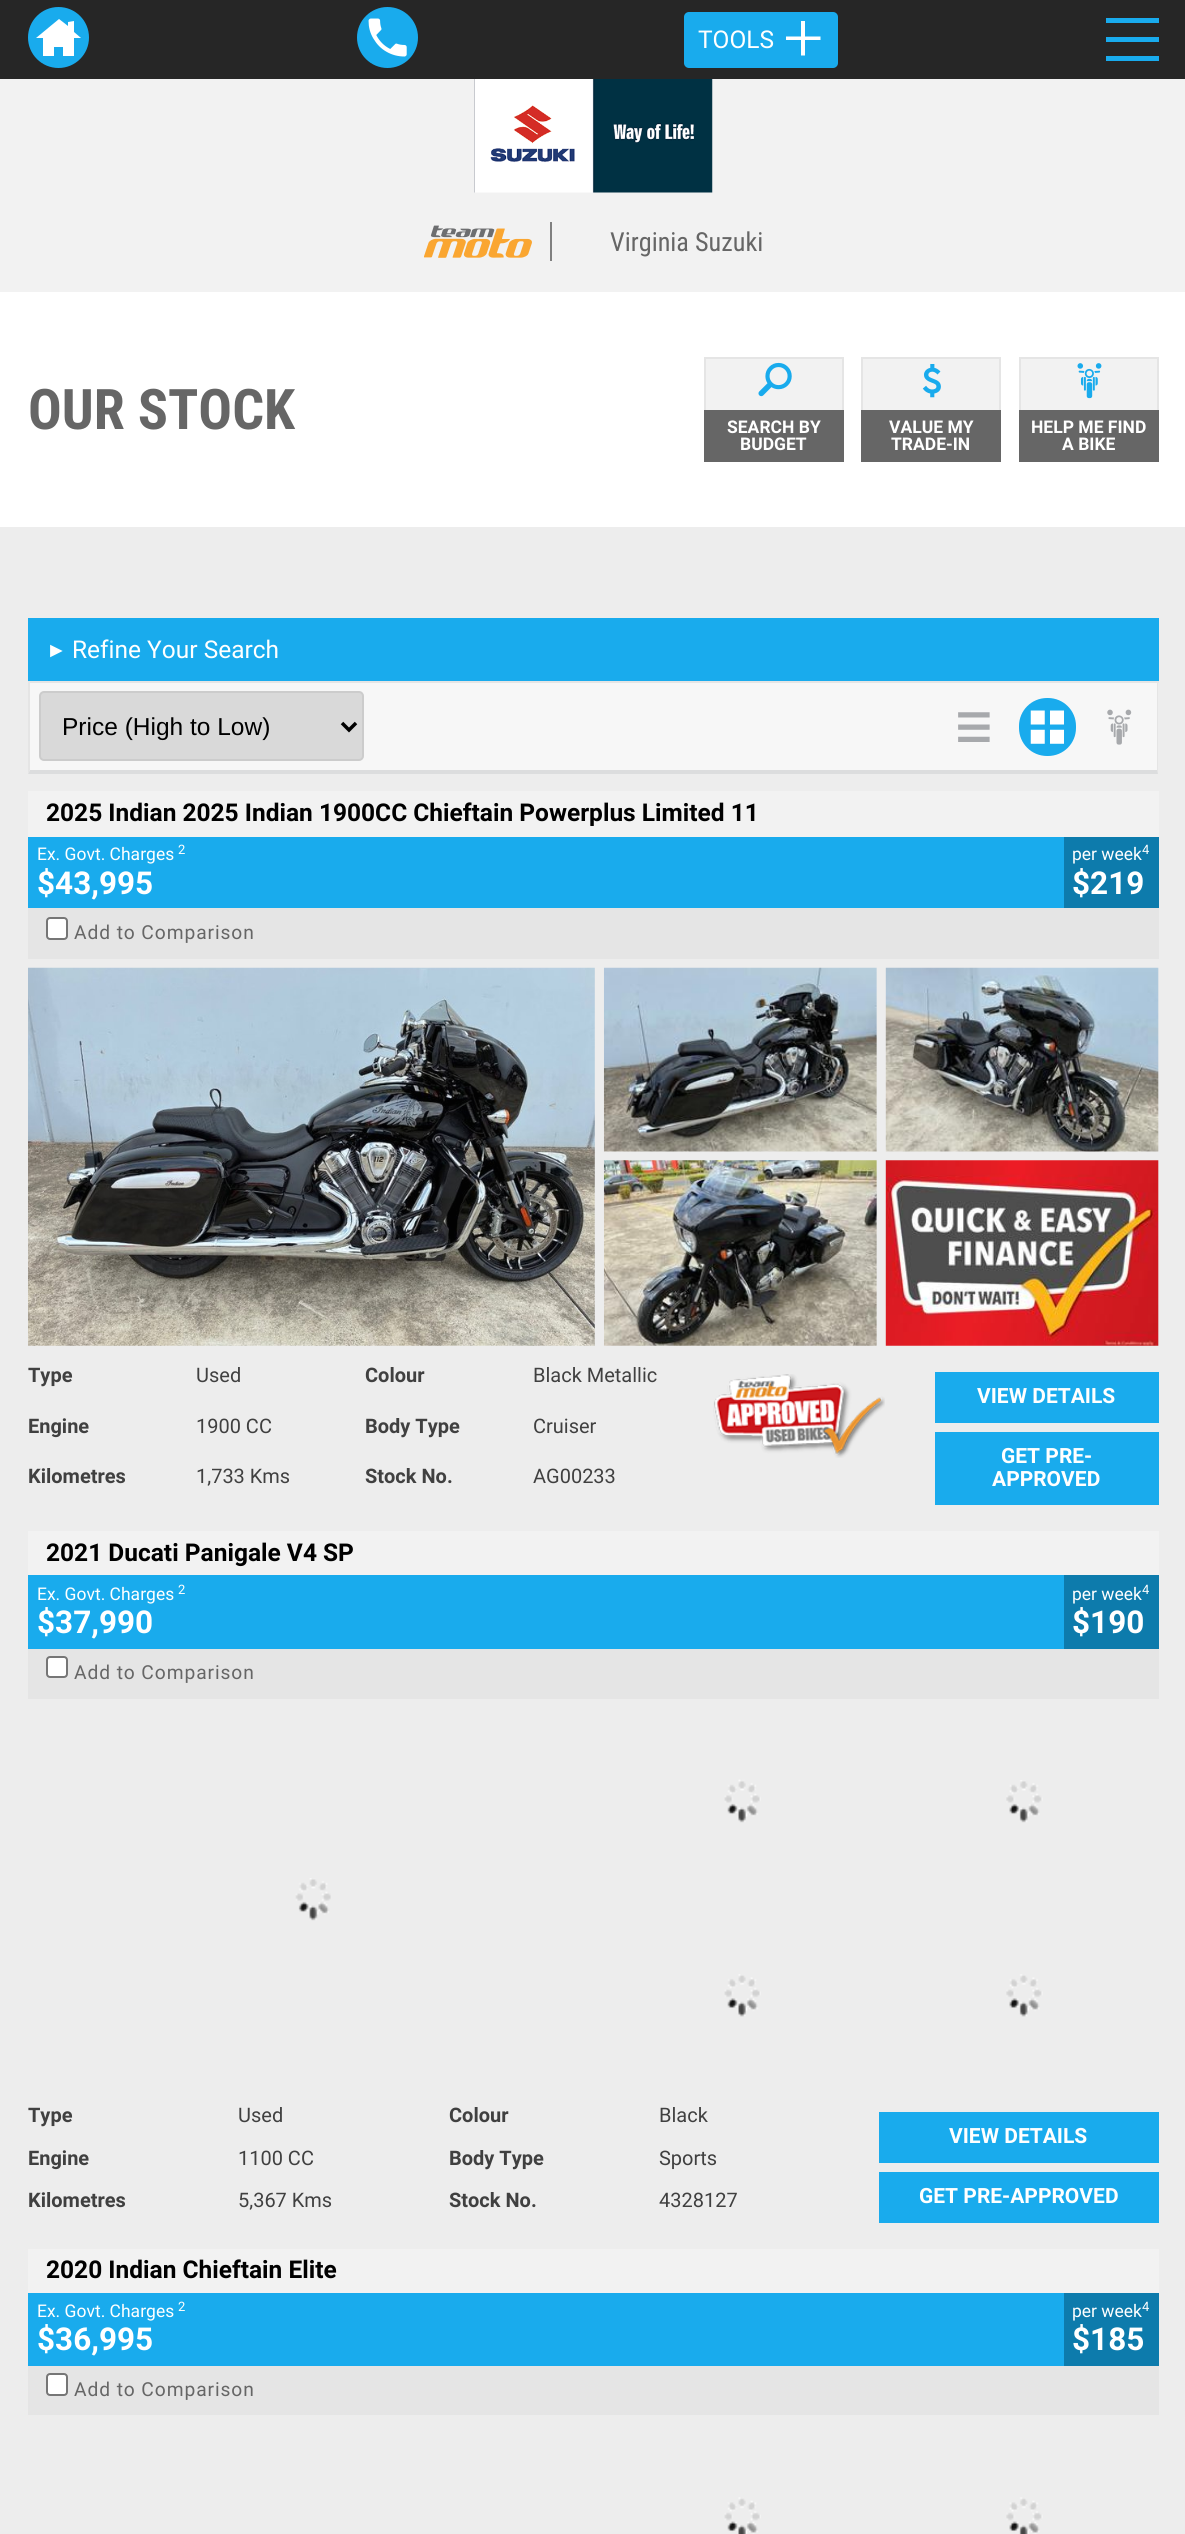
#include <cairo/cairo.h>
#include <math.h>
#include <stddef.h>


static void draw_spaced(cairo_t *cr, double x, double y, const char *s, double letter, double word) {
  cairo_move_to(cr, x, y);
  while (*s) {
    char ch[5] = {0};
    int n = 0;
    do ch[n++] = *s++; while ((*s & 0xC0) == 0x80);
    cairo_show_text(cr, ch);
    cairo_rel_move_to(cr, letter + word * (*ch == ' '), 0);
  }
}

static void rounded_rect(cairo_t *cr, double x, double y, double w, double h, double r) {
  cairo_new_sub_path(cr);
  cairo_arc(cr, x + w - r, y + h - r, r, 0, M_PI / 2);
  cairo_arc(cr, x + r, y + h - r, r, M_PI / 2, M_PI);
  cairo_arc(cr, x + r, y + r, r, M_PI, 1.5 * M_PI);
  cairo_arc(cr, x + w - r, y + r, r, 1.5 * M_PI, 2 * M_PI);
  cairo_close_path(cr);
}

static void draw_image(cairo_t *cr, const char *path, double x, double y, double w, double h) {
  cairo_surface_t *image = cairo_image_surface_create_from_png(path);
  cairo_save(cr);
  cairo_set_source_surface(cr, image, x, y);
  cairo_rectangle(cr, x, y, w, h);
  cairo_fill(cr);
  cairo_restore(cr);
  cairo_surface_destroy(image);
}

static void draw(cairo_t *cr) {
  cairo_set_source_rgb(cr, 1, 1, 1);
  cairo_paint(cr);
  cairo_set_source_rgb(cr, 38 / 255.0, 38 / 255.0, 38 / 255.0);
  cairo_rectangle(cr, 0, 0, 1185, 79);
  cairo_fill(cr);
  cairo_set_source_rgb(cr, 25 / 255.0, 171 / 255.0, 237 / 255.0);
  cairo_arc(cr, 58.5, 37.5, 30.5, 0, 2 * M_PI);
  cairo_fill(cr);
  cairo_set_source_rgb(cr, 1, 1, 1);
  cairo_new_path(cr);
  cairo_move_to(cr, 74, 32);
  cairo_line_to(cr, 74, 21);
  cairo_line_to(cr, 68, 22);
  cairo_line_to(cr, 68, 26);
  cairo_line_to(cr, 59, 19);
  cairo_line_to(cr, 36, 38);
  cairo_line_to(cr, 43, 38);
  cairo_line_to(cr, 43, 56);
  cairo_line_to(cr, 54, 56);
  cairo_line_to(cr, 54, 47);
  cairo_line_to(cr, 63, 47);
  cairo_line_to(cr, 63, 56);
  cairo_line_to(cr, 74, 56);
  cairo_line_to(cr, 74, 38);
  cairo_line_to(cr, 81, 38);
  cairo_close_path(cr);
  cairo_fill(cr);
  draw_image(cr, "images/1.png", 357, 7, 61, 61);
  cairo_set_source_rgb(cr, 25 / 255.0, 171 / 255.0, 237 / 255.0);
  rounded_rect(cr, 684, 12, 154, 56, 5);
  cairo_fill(cr);
  cairo_set_source_rgb(cr, 1, 1, 1);
  cairo_new_path(cr);
  cairo_move_to(cr, 820.5, 36.5);
  cairo_line_to(cr, 805, 36.5);
  cairo_line_to(cr, 805, 21);
  cairo_line_to(cr, 801, 21);
  cairo_line_to(cr, 801, 36.5);
  cairo_line_to(cr, 786, 36.5);
  cairo_line_to(cr, 786, 40);
  cairo_line_to(cr, 801, 40);
  cairo_line_to(cr, 801, 55.5);
  cairo_line_to(cr, 805, 55.5);
  cairo_line_to(cr, 805, 40);
  cairo_line_to(cr, 820.5, 40);
  cairo_close_path(cr);
  cairo_fill(cr);
  cairo_set_source_rgb(cr, 25 / 255.0, 171 / 255.0, 237 / 255.0);
  cairo_rectangle(cr, 1106, 18, 53, 5);
  cairo_fill(cr);
  cairo_rectangle(cr, 1106, 37, 53, 5);
  cairo_fill(cr);
  cairo_rectangle(cr, 1106, 56, 53, 5);
  cairo_fill(cr);
  cairo_set_source_rgb(cr, 242 / 255.0, 242 / 255.0, 242 / 255.0);
  cairo_rectangle(cr, 0, 79, 1185, 213);
  cairo_fill(cr);
  draw_image(cr, "images/2.png", 474, 79, 239, 114);
  draw_image(cr, "images/3.png", 424, 225, 108, 33);
  cairo_set_source_rgb(cr, 128 / 255.0, 128 / 255.0, 128 / 255.0);
  cairo_rectangle(cr, 550, 222, 2, 39);
  cairo_fill(cr);
  cairo_set_source_rgb(cr, 237 / 255.0, 237 / 255.0, 237 / 255.0);
  cairo_rectangle(cr, 0, 527, 1185, 2007);
  cairo_fill(cr);
  cairo_set_source_rgb(cr, 242 / 255.0, 242 / 255.0, 242 / 255.0);
  cairo_rectangle(cr, 706, 359, 136, 51);
  cairo_fill(cr);
  cairo_set_source_rgb(cr, 229 / 255.0, 229 / 255.0, 229 / 255.0);
  cairo_rectangle(cr, 704, 357, 140, 2);
  cairo_fill(cr);
  cairo_rectangle(cr, 842, 357, 2, 53);
  cairo_fill(cr);
  cairo_rectangle(cr, 704, 357, 2, 53);
  cairo_fill(cr);
  draw_image(cr, "images/4.png", 758, 362, 34, 35);
  cairo_set_source_rgb(cr, 102 / 255.0, 102 / 255.0, 102 / 255.0);
  cairo_rectangle(cr, 704, 410, 140, 52);
  cairo_fill(cr);
  cairo_set_source_rgb(cr, 242 / 255.0, 242 / 255.0, 242 / 255.0);
  cairo_rectangle(cr, 863, 359, 136, 51);
  cairo_fill(cr);
  cairo_set_source_rgb(cr, 229 / 255.0, 229 / 255.0, 229 / 255.0);
  cairo_rectangle(cr, 861, 357, 140, 2);
  cairo_fill(cr);
  cairo_rectangle(cr, 999, 357, 2, 53);
  cairo_fill(cr);
  cairo_rectangle(cr, 861, 357, 2, 53);
  cairo_fill(cr);
  draw_image(cr, "images/5.png", 922, 364, 19, 34);
  cairo_set_source_rgb(cr, 102 / 255.0, 102 / 255.0, 102 / 255.0);
  cairo_rectangle(cr, 861, 410, 140, 52);
  cairo_fill(cr);
  cairo_set_source_rgb(cr, 242 / 255.0, 242 / 255.0, 242 / 255.0);
  cairo_rectangle(cr, 1021, 359, 136, 51);
  cairo_fill(cr);
  cairo_set_source_rgb(cr, 229 / 255.0, 229 / 255.0, 229 / 255.0);
  cairo_rectangle(cr, 1019, 357, 140, 2);
  cairo_fill(cr);
  cairo_rectangle(cr, 1157, 357, 2, 53);
  cairo_fill(cr);
  cairo_rectangle(cr, 1019, 357, 2, 53);
  cairo_fill(cr);
  draw_image(cr, "images/6.png", 1077, 363, 25, 36);
  cairo_set_source_rgb(cr, 102 / 255.0, 102 / 255.0, 102 / 255.0);
  cairo_rectangle(cr, 1019, 410, 140, 52);
  cairo_fill(cr);
  cairo_set_source_rgb(cr, 25 / 255.0, 171 / 255.0, 237 / 255.0);
  cairo_rectangle(cr, 28, 618, 1131, 63);
  cairo_fill(cr);
  cairo_set_source_rgb(cr, 247 / 255.0, 247 / 255.0, 247 / 255.0);
  cairo_rectangle(cr, 30, 683, 1127, 87);
  cairo_fill(cr);
  cairo_set_source_rgb(cr, 229 / 255.0, 229 / 255.0, 229 / 255.0);
  cairo_rectangle(cr, 28, 681, 1131, 2);
  cairo_fill(cr);
  cairo_new_path(cr);
  cairo_move_to(cr, 1158, 681);
  cairo_line_to(cr, 1158, 774);
  cairo_line_to(cr, 1157, 770);
  cairo_line_to(cr, 1157, 682);
  cairo_close_path(cr);
  cairo_fill(cr);
  cairo_set_source_rgb(cr, 220 / 255.0, 221 / 255.0, 222 / 255.0);
  cairo_new_path(cr);
  cairo_move_to(cr, 1158, 774);
  cairo_line_to(cr, 28, 774);
  cairo_line_to(cr, 30, 770);
  cairo_line_to(cr, 1157, 770);
  cairo_close_path(cr);
  cairo_fill(cr);
  cairo_set_source_rgb(cr, 229 / 255.0, 229 / 255.0, 229 / 255.0);
  cairo_new_path(cr);
  cairo_move_to(cr, 28, 774);
  cairo_line_to(cr, 28, 681);
  cairo_line_to(cr, 30, 682);
  cairo_line_to(cr, 30, 770);
  cairo_close_path(cr);
  cairo_fill(cr);
  cairo_set_source_rgb(cr, 217 / 255.0, 217 / 255.0, 217 / 255.0);
  rounded_rect(cr, 40, 692, 323, 68, 4);
  cairo_fill_preserve(cr);
  cairo_set_source_rgb(cr, 204 / 255.0, 204 / 255.0, 204 / 255.0);
  cairo_stroke(cr);
  cairo_new_path(cr);
  cairo_move_to(cr, 342, 723);
  cairo_line_to(cr, 349, 730);
  cairo_line_to(cr, 356, 723);
  cairo_set_source_rgb(cr, 0, 0, 0);
  cairo_set_line_width(cr, 3.5);
  cairo_stroke(cr);
  draw_image(cr, "images/7.png", 958, 712, 32, 30);
  cairo_set_source_rgb(cr, 25 / 255.0, 171 / 255.0, 237 / 255.0);
  rounded_rect(cr, 1019, 698, 57, 58, 28);
  cairo_fill(cr);
  draw_image(cr, "images/8.png", 1030, 710, 34, 34);
  draw_image(cr, "images/9.png", 1107, 709, 25, 36);
  cairo_set_source_rgb(cr, 242 / 255.0, 242 / 255.0, 242 / 255.0);
  cairo_rectangle(cr, 28, 791, 1131, 46);
  cairo_fill(cr);
  cairo_set_source_rgb(cr, 25 / 255.0, 171 / 255.0, 237 / 255.0);
  cairo_rectangle(cr, 28, 837, 1036, 71);
  cairo_fill(cr);
  cairo_set_source_rgb(cr, 13 / 255.0, 123 / 255.0, 172 / 255.0);
  cairo_rectangle(cr, 1064, 837, 95, 71);
  cairo_fill(cr);
  cairo_set_source_rgb(cr, 229 / 255.0, 229 / 255.0, 229 / 255.0);
  cairo_rectangle(cr, 28, 908, 1131, 51);
  cairo_fill(cr);
  cairo_set_source_rgb(cr, 1, 1, 1);
  rounded_rect(cr, 47, 918, 20, 21, 3);
  cairo_fill_preserve(cr);
  cairo_set_source_rgb(cr, 118 / 255.0, 118 / 255.0, 118 / 255.0);
  cairo_set_line_width(cr, 2);
  cairo_stroke(cr);
  draw_image(cr, "images/10.png", 28, 967, 567, 379);
  draw_image(cr, "images/11.png", 603, 967, 274, 185);
  draw_image(cr, "images/12.png", 885, 967, 274, 185);
  draw_image(cr, "images/13.png", 603, 1160, 274, 186);
  draw_image(cr, "images/14.png", 885, 1160, 274, 186);
  draw_image(cr, "images/15.png", 713, 1374, 172, 84);
  cairo_set_source_rgb(cr, 25 / 255.0, 171 / 255.0, 237 / 255.0);
  cairo_rectangle(cr, 935, 1372, 224, 51);
  cairo_fill(cr);
  cairo_rectangle(cr, 935, 1432, 224, 73);
  cairo_fill(cr);
  cairo_set_source_rgb(cr, 242 / 255.0, 242 / 255.0, 242 / 255.0);
  cairo_rectangle(cr, 28, 1531, 1131, 44);
  cairo_fill(cr);
  cairo_set_source_rgb(cr, 25 / 255.0, 171 / 255.0, 237 / 255.0);
  cairo_rectangle(cr, 28, 1575, 1036, 74);
  cairo_fill(cr);
  cairo_set_source_rgb(cr, 13 / 255.0, 123 / 255.0, 172 / 255.0);
  cairo_rectangle(cr, 1064, 1575, 95, 74);
  cairo_fill(cr);
  cairo_set_source_rgb(cr, 229 / 255.0, 229 / 255.0, 229 / 255.0);
  cairo_rectangle(cr, 28, 1649, 1131, 50);
  cairo_fill(cr);
  cairo_set_source_rgb(cr, 1, 1, 1);
  rounded_rect(cr, 47, 1657, 20, 20, 3);
  cairo_fill_preserve(cr);
  cairo_set_source_rgb(cr, 118 / 255.0, 118 / 255.0, 118 / 255.0);
  cairo_stroke(cr);
  draw_image(cr, "images/16.png", 724, 1779, 37, 44);
  draw_image(cr, "images/17.png", 1006, 1780, 37, 43);
  draw_image(cr, "images/18.png", 295, 1878, 36, 43);
  draw_image(cr, "images/19.png", 724, 1974, 37, 43);
  draw_image(cr, "images/20.png", 1006, 1974, 37, 43);
  cairo_set_source_rgb(cr, 25 / 255.0, 171 / 255.0, 237 / 255.0);
  cairo_rectangle(cr, 879, 2112, 280, 51);
  cairo_fill(cr);
  cairo_rectangle(cr, 879, 2172, 280, 51);
  cairo_fill(cr);
  cairo_set_source_rgb(cr, 242 / 255.0, 242 / 255.0, 242 / 255.0);
  cairo_rectangle(cr, 28, 2249, 1131, 44);
  cairo_fill(cr);
  cairo_set_source_rgb(cr, 25 / 255.0, 171 / 255.0, 237 / 255.0);
  cairo_rectangle(cr, 28, 2293, 1036, 73);
  cairo_fill(cr);
  cairo_set_source_rgb(cr, 13 / 255.0, 123 / 255.0, 172 / 255.0);
  cairo_rectangle(cr, 1064, 2293, 95, 73);
  cairo_fill(cr);
  cairo_set_source_rgb(cr, 229 / 255.0, 229 / 255.0, 229 / 255.0);
  cairo_rectangle(cr, 28, 2366, 1131, 49);
  cairo_fill(cr);
  cairo_set_source_rgb(cr, 1, 1, 1);
  rounded_rect(cr, 47, 2374, 20, 21, 3);
  cairo_fill_preserve(cr);
  cairo_set_source_rgb(cr, 118 / 255.0, 118 / 255.0, 118 / 255.0);
  cairo_stroke(cr);
  draw_image(cr, "images/21.png", 724, 2497, 37, 37);
  draw_image(cr, "images/22.png", 1006, 2497, 37, 37);
  cairo_select_font_face(cr, "Roboto", CAIRO_FONT_SLANT_NORMAL, CAIRO_FONT_WEIGHT_NORMAL);
  cairo_set_font_size(cr, 24.5);
  cairo_set_source_rgb(cr, 1, 1, 1);
  cairo_move_to(cr, 698, 48);
  cairo_show_text(cr, "TOOLS");
  cairo_select_font_face(cr, "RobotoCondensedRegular", CAIRO_FONT_SLANT_NORMAL, CAIRO_FONT_WEIGHT_NORMAL);
  cairo_set_font_size(cr, 26.25);
  cairo_set_source_rgb(cr, 102 / 255.0, 102 / 255.0, 102 / 255.0);
  cairo_move_to(cr, 610, 251);
  cairo_show_text(cr, "Virginia Suzuki");
  cairo_select_font_face(cr, "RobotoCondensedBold", CAIRO_FONT_SLANT_NORMAL, CAIRO_FONT_WEIGHT_BOLD);
  cairo_set_font_size(cr, 56);
  cairo_move_to(cr, 28, 429);
  cairo_show_text(cr, "OUR STOCK");
  cairo_select_font_face(cr, "Roboto", CAIRO_FONT_SLANT_NORMAL, CAIRO_FONT_WEIGHT_BOLD);
  cairo_set_font_size(cr, 17.5);
  cairo_set_source_rgb(cr, 1, 1, 1);
  cairo_move_to(cr, 727, 433);
  cairo_show_text(cr, "SEARCH BY");
  cairo_move_to(cr, 740, 450);
  cairo_show_text(cr, "BUDGET");
  cairo_move_to(cr, 889, 433);
  cairo_show_text(cr, "VALUE MY");
  cairo_move_to(cr, 891, 450);
  cairo_show_text(cr, "TRADE-IN");
  cairo_move_to(cr, 1031, 433);
  cairo_show_text(cr, "HELP ME FIND");
  cairo_move_to(cr, 1062, 450);
  cairo_show_text(cr, "A BIKE");
  cairo_select_font_face(cr, "Liberation Sans", CAIRO_FONT_SLANT_NORMAL, CAIRO_FONT_WEIGHT_NORMAL);
  cairo_set_font_size(cr, 21);
  cairo_move_to(cr, 46, 657);
  cairo_show_text(cr, "►");
  cairo_select_font_face(cr, "Roboto", CAIRO_FONT_SLANT_NORMAL, CAIRO_FONT_WEIGHT_NORMAL);
  cairo_set_font_size(cr, 24.5);
  cairo_move_to(cr, 72, 658);
  cairo_show_text(cr, "Refine Your Search");
  cairo_select_font_face(cr, "Liberation Sans", CAIRO_FONT_SLANT_NORMAL, CAIRO_FONT_WEIGHT_NORMAL);
  cairo_set_source_rgb(cr, 0, 0, 0);
  cairo_move_to(cr, 62, 735);
  cairo_show_text(cr, "Price (High to Low)");
  cairo_select_font_face(cr, "Roboto", CAIRO_FONT_SLANT_NORMAL, CAIRO_FONT_WEIGHT_BOLD);
  cairo_move_to(cr, 46, 821);
  cairo_show_text(cr, "2025 Indian 2025 Indian 1900CC Chieftain Powerplus Limited 11");
  cairo_select_font_face(cr, "Roboto", CAIRO_FONT_SLANT_NORMAL, CAIRO_FONT_WEIGHT_NORMAL);
  cairo_set_font_size(cr, 17.5);
  cairo_set_source_rgb(cr, 1, 1, 1);
  cairo_move_to(cr, 37, 860);
  cairo_show_text(cr, "Ex. Govt. Charges");
  cairo_set_font_size(cr, 13);
  cairo_move_to(cr, 178, 854);
  cairo_show_text(cr, "2");
  cairo_select_font_face(cr, "Roboto", CAIRO_FONT_SLANT_NORMAL, CAIRO_FONT_WEIGHT_BOLD);
  cairo_set_font_size(cr, 31.5);
  cairo_move_to(cr, 37, 894);
  cairo_show_text(cr, "$43,995");
  cairo_select_font_face(cr, "Roboto", CAIRO_FONT_SLANT_NORMAL, CAIRO_FONT_WEIGHT_NORMAL);
  cairo_set_font_size(cr, 17.5);
  cairo_move_to(cr, 1072, 860);
  cairo_show_text(cr, "per week");
  cairo_set_font_size(cr, 13);
  cairo_move_to(cr, 1142, 854);
  cairo_show_text(cr, "4");
  cairo_select_font_face(cr, "Roboto", CAIRO_FONT_SLANT_NORMAL, CAIRO_FONT_WEIGHT_BOLD);
  cairo_set_font_size(cr, 31.5);
  cairo_move_to(cr, 1072, 894);
  cairo_show_text(cr, "$219");
  cairo_select_font_face(cr, "Roboto", CAIRO_FONT_SLANT_NORMAL, CAIRO_FONT_WEIGHT_NORMAL);
  cairo_set_font_size(cr, 19.25);
  cairo_set_source_rgb(cr, 102 / 255.0, 102 / 255.0, 102 / 255.0);
  draw_spaced(cr, 74, 939, "Add to Comparison", 0.9, 0);
  cairo_select_font_face(cr, "Roboto", CAIRO_FONT_SLANT_NORMAL, CAIRO_FONT_WEIGHT_BOLD);
  cairo_set_font_size(cr, 20);
  cairo_set_source_rgb(cr, 64 / 255.0, 64 / 255.0, 64 / 255.0);
  cairo_move_to(cr, 28, 1382);
  cairo_show_text(cr, "Type");
  cairo_select_font_face(cr, "Roboto", CAIRO_FONT_SLANT_NORMAL, CAIRO_FONT_WEIGHT_NORMAL);
  cairo_move_to(cr, 196, 1382);
  cairo_show_text(cr, "Used");
  cairo_select_font_face(cr, "Roboto", CAIRO_FONT_SLANT_NORMAL, CAIRO_FONT_WEIGHT_BOLD);
  cairo_move_to(cr, 365, 1382);
  cairo_show_text(cr, "Colour");
  cairo_select_font_face(cr, "Roboto", CAIRO_FONT_SLANT_NORMAL, CAIRO_FONT_WEIGHT_NORMAL);
  cairo_move_to(cr, 533, 1382);
  cairo_show_text(cr, "Black Metallic");
  cairo_select_font_face(cr, "Roboto", CAIRO_FONT_SLANT_NORMAL, CAIRO_FONT_WEIGHT_BOLD);
  cairo_move_to(cr, 28, 1433);
  cairo_show_text(cr, "Engine");
  cairo_select_font_face(cr, "Roboto", CAIRO_FONT_SLANT_NORMAL, CAIRO_FONT_WEIGHT_NORMAL);
  cairo_move_to(cr, 196, 1433);
  cairo_show_text(cr, "1900 CC");
  cairo_select_font_face(cr, "Roboto", CAIRO_FONT_SLANT_NORMAL, CAIRO_FONT_WEIGHT_BOLD);
  cairo_move_to(cr, 365, 1433);
  cairo_show_text(cr, "Body Type");
  cairo_select_font_face(cr, "Roboto", CAIRO_FONT_SLANT_NORMAL, CAIRO_FONT_WEIGHT_NORMAL);
  cairo_move_to(cr, 533, 1433);
  cairo_show_text(cr, "Cruiser");
  cairo_select_font_face(cr, "Roboto", CAIRO_FONT_SLANT_NORMAL, CAIRO_FONT_WEIGHT_BOLD);
  cairo_move_to(cr, 28, 1483);
  cairo_show_text(cr, "Kilometres");
  cairo_select_font_face(cr, "Roboto", CAIRO_FONT_SLANT_NORMAL, CAIRO_FONT_WEIGHT_NORMAL);
  cairo_move_to(cr, 196, 1483);
  cairo_show_text(cr, "1,733 Kms");
  cairo_select_font_face(cr, "Roboto", CAIRO_FONT_SLANT_NORMAL, CAIRO_FONT_WEIGHT_BOLD);
  cairo_move_to(cr, 365, 1483);
  cairo_show_text(cr, "Stock No.");
  cairo_select_font_face(cr, "Roboto", CAIRO_FONT_SLANT_NORMAL, CAIRO_FONT_WEIGHT_NORMAL);
  cairo_move_to(cr, 533, 1483);
  cairo_show_text(cr, "AG00233");
  cairo_select_font_face(cr, "Roboto", CAIRO_FONT_SLANT_NORMAL, CAIRO_FONT_WEIGHT_BOLD);
  cairo_set_font_size(cr, 21);
  cairo_set_source_rgb(cr, 1, 1, 1);
  cairo_move_to(cr, 977, 1403);
  cairo_show_text(cr, "VIEW DETAILS");
  cairo_move_to(cr, 1001, 1463);
  cairo_show_text(cr, "GET PRE-");
  cairo_move_to(cr, 992, 1486);
  cairo_show_text(cr, "APPROVED");
  cairo_set_font_size(cr, 24.5);
  cairo_set_source_rgb(cr, 0, 0, 0);
  cairo_move_to(cr, 46, 1561);
  cairo_show_text(cr, "2021 Ducati Panigale V4 SP");
  cairo_select_font_face(cr, "Roboto", CAIRO_FONT_SLANT_NORMAL, CAIRO_FONT_WEIGHT_NORMAL);
  cairo_set_font_size(cr, 17.5);
  cairo_set_source_rgb(cr, 1, 1, 1);
  cairo_move_to(cr, 37, 1600);
  cairo_show_text(cr, "Ex. Govt. Charges");
  cairo_set_font_size(cr, 13);
  cairo_move_to(cr, 178, 1594);
  cairo_show_text(cr, "2");
  cairo_select_font_face(cr, "Roboto", CAIRO_FONT_SLANT_NORMAL, CAIRO_FONT_WEIGHT_BOLD);
  cairo_set_font_size(cr, 31.5);
  cairo_move_to(cr, 37, 1633);
  cairo_show_text(cr, "$37,990");
  cairo_select_font_face(cr, "Roboto", CAIRO_FONT_SLANT_NORMAL, CAIRO_FONT_WEIGHT_NORMAL);
  cairo_set_font_size(cr, 17.5);
  cairo_move_to(cr, 1072, 1600);
  cairo_show_text(cr, "per week");
  cairo_set_font_size(cr, 13);
  cairo_move_to(cr, 1142, 1594);
  cairo_show_text(cr, "4");
  cairo_select_font_face(cr, "Roboto", CAIRO_FONT_SLANT_NORMAL, CAIRO_FONT_WEIGHT_BOLD);
  cairo_set_font_size(cr, 31.5);
  cairo_move_to(cr, 1072, 1633);
  cairo_show_text(cr, "$190");
  cairo_select_font_face(cr, "Roboto", CAIRO_FONT_SLANT_NORMAL, CAIRO_FONT_WEIGHT_NORMAL);
  cairo_set_font_size(cr, 19.25);
  cairo_set_source_rgb(cr, 102 / 255.0, 102 / 255.0, 102 / 255.0);
  draw_spaced(cr, 74, 1679, "Add to Comparison", 0.9, 0);
  cairo_select_font_face(cr, "Roboto", CAIRO_FONT_SLANT_NORMAL, CAIRO_FONT_WEIGHT_BOLD);
  cairo_set_font_size(cr, 20);
  cairo_set_source_rgb(cr, 64 / 255.0, 64 / 255.0, 64 / 255.0);
  cairo_move_to(cr, 28, 2122);
  cairo_show_text(cr, "Type");
  cairo_select_font_face(cr, "Roboto", CAIRO_FONT_SLANT_NORMAL, CAIRO_FONT_WEIGHT_NORMAL);
  cairo_move_to(cr, 238, 2122);
  cairo_show_text(cr, "Used");
  cairo_select_font_face(cr, "Roboto", CAIRO_FONT_SLANT_NORMAL, CAIRO_FONT_WEIGHT_BOLD);
  cairo_move_to(cr, 449, 2122);
  cairo_show_text(cr, "Colour");
  cairo_select_font_face(cr, "Roboto", CAIRO_FONT_SLANT_NORMAL, CAIRO_FONT_WEIGHT_NORMAL);
  cairo_move_to(cr, 659, 2122);
  cairo_show_text(cr, "Black");
  cairo_select_font_face(cr, "Roboto", CAIRO_FONT_SLANT_NORMAL, CAIRO_FONT_WEIGHT_BOLD);
  cairo_move_to(cr, 28, 2165);
  cairo_show_text(cr, "Engine");
  cairo_select_font_face(cr, "Roboto", CAIRO_FONT_SLANT_NORMAL, CAIRO_FONT_WEIGHT_NORMAL);
  cairo_move_to(cr, 238, 2165);
  cairo_show_text(cr, "1100 CC");
  cairo_select_font_face(cr, "Roboto", CAIRO_FONT_SLANT_NORMAL, CAIRO_FONT_WEIGHT_BOLD);
  cairo_move_to(cr, 449, 2165);
  cairo_show_text(cr, "Body Type");
  cairo_select_font_face(cr, "Roboto", CAIRO_FONT_SLANT_NORMAL, CAIRO_FONT_WEIGHT_NORMAL);
  cairo_move_to(cr, 659, 2165);
  cairo_show_text(cr, "Sports");
  cairo_select_font_face(cr, "Roboto", CAIRO_FONT_SLANT_NORMAL, CAIRO_FONT_WEIGHT_BOLD);
  cairo_move_to(cr, 28, 2207);
  cairo_show_text(cr, "Kilometres");
  cairo_select_font_face(cr, "Roboto", CAIRO_FONT_SLANT_NORMAL, CAIRO_FONT_WEIGHT_NORMAL);
  cairo_move_to(cr, 238, 2207);
  cairo_show_text(cr, "5,367 Kms");
  cairo_select_font_face(cr, "Roboto", CAIRO_FONT_SLANT_NORMAL, CAIRO_FONT_WEIGHT_BOLD);
  cairo_move_to(cr, 449, 2207);
  cairo_show_text(cr, "Stock No.");
  cairo_select_font_face(cr, "Roboto", CAIRO_FONT_SLANT_NORMAL, CAIRO_FONT_WEIGHT_NORMAL);
  cairo_move_to(cr, 659, 2207);
  cairo_show_text(cr, "4328127");
  cairo_select_font_face(cr, "Roboto", CAIRO_FONT_SLANT_NORMAL, CAIRO_FONT_WEIGHT_BOLD);
  cairo_set_font_size(cr, 21);
  cairo_set_source_rgb(cr, 1, 1, 1);
  cairo_move_to(cr, 949, 2143);
  cairo_show_text(cr, "VIEW DETAILS");
  cairo_move_to(cr, 919, 2203);
  cairo_show_text(cr, "GET PRE-APPROVED");
  cairo_set_font_size(cr, 24.5);
  cairo_set_source_rgb(cr, 0, 0, 0);
  cairo_move_to(cr, 46, 2278);
  cairo_show_text(cr, "2020 Indian Chieftain Elite");
  cairo_select_font_face(cr, "Roboto", CAIRO_FONT_SLANT_NORMAL, CAIRO_FONT_WEIGHT_NORMAL);
  cairo_set_font_size(cr, 17.5);
  cairo_set_source_rgb(cr, 1, 1, 1);
  cairo_move_to(cr, 37, 2317);
  cairo_show_text(cr, "Ex. Govt. Charges");
  cairo_set_font_size(cr, 13);
  cairo_move_to(cr, 178, 2311);
  cairo_show_text(cr, "2");
  cairo_select_font_face(cr, "Roboto", CAIRO_FONT_SLANT_NORMAL, CAIRO_FONT_WEIGHT_BOLD);
  cairo_set_font_size(cr, 31.5);
  cairo_move_to(cr, 37, 2350);
  cairo_show_text(cr, "$36,995");
  cairo_select_font_face(cr, "Roboto", CAIRO_FONT_SLANT_NORMAL, CAIRO_FONT_WEIGHT_NORMAL);
  cairo_set_font_size(cr, 17.5);
  cairo_move_to(cr, 1072, 2317);
  cairo_show_text(cr, "per week");
  cairo_set_font_size(cr, 13);
  cairo_move_to(cr, 1142, 2311);
  cairo_show_text(cr, "4");
  cairo_select_font_face(cr, "Roboto", CAIRO_FONT_SLANT_NORMAL, CAIRO_FONT_WEIGHT_BOLD);
  cairo_set_font_size(cr, 31.5);
  cairo_move_to(cr, 1072, 2350);
  cairo_show_text(cr, "$185");
  cairo_select_font_face(cr, "Roboto", CAIRO_FONT_SLANT_NORMAL, CAIRO_FONT_WEIGHT_NORMAL);
  cairo_set_font_size(cr, 19.25);
  cairo_set_source_rgb(cr, 102 / 255.0, 102 / 255.0, 102 / 255.0);
  draw_spaced(cr, 74, 2396, "Add to Comparison", 0.9, 0);
}

int main(void) {
  cairo_surface_t *surface = cairo_image_surface_create(CAIRO_FORMAT_RGB24, 1185, 2534);
  cairo_t *cr = cairo_create(surface);
  cairo_font_options_t *options = cairo_font_options_create();
  cairo_font_options_set_hint_metrics(options, CAIRO_HINT_METRICS_OFF);
  cairo_font_options_set_hint_style(options, CAIRO_HINT_STYLE_NONE);
  cairo_set_font_options(cr, options);
  cairo_set_miter_limit(cr, 4);
  draw(cr);
  cairo_surface_write_to_png(surface, "out.png");
  cairo_font_options_destroy(options);
  cairo_destroy(cr);
  cairo_surface_destroy(surface);
  return 0;
}
